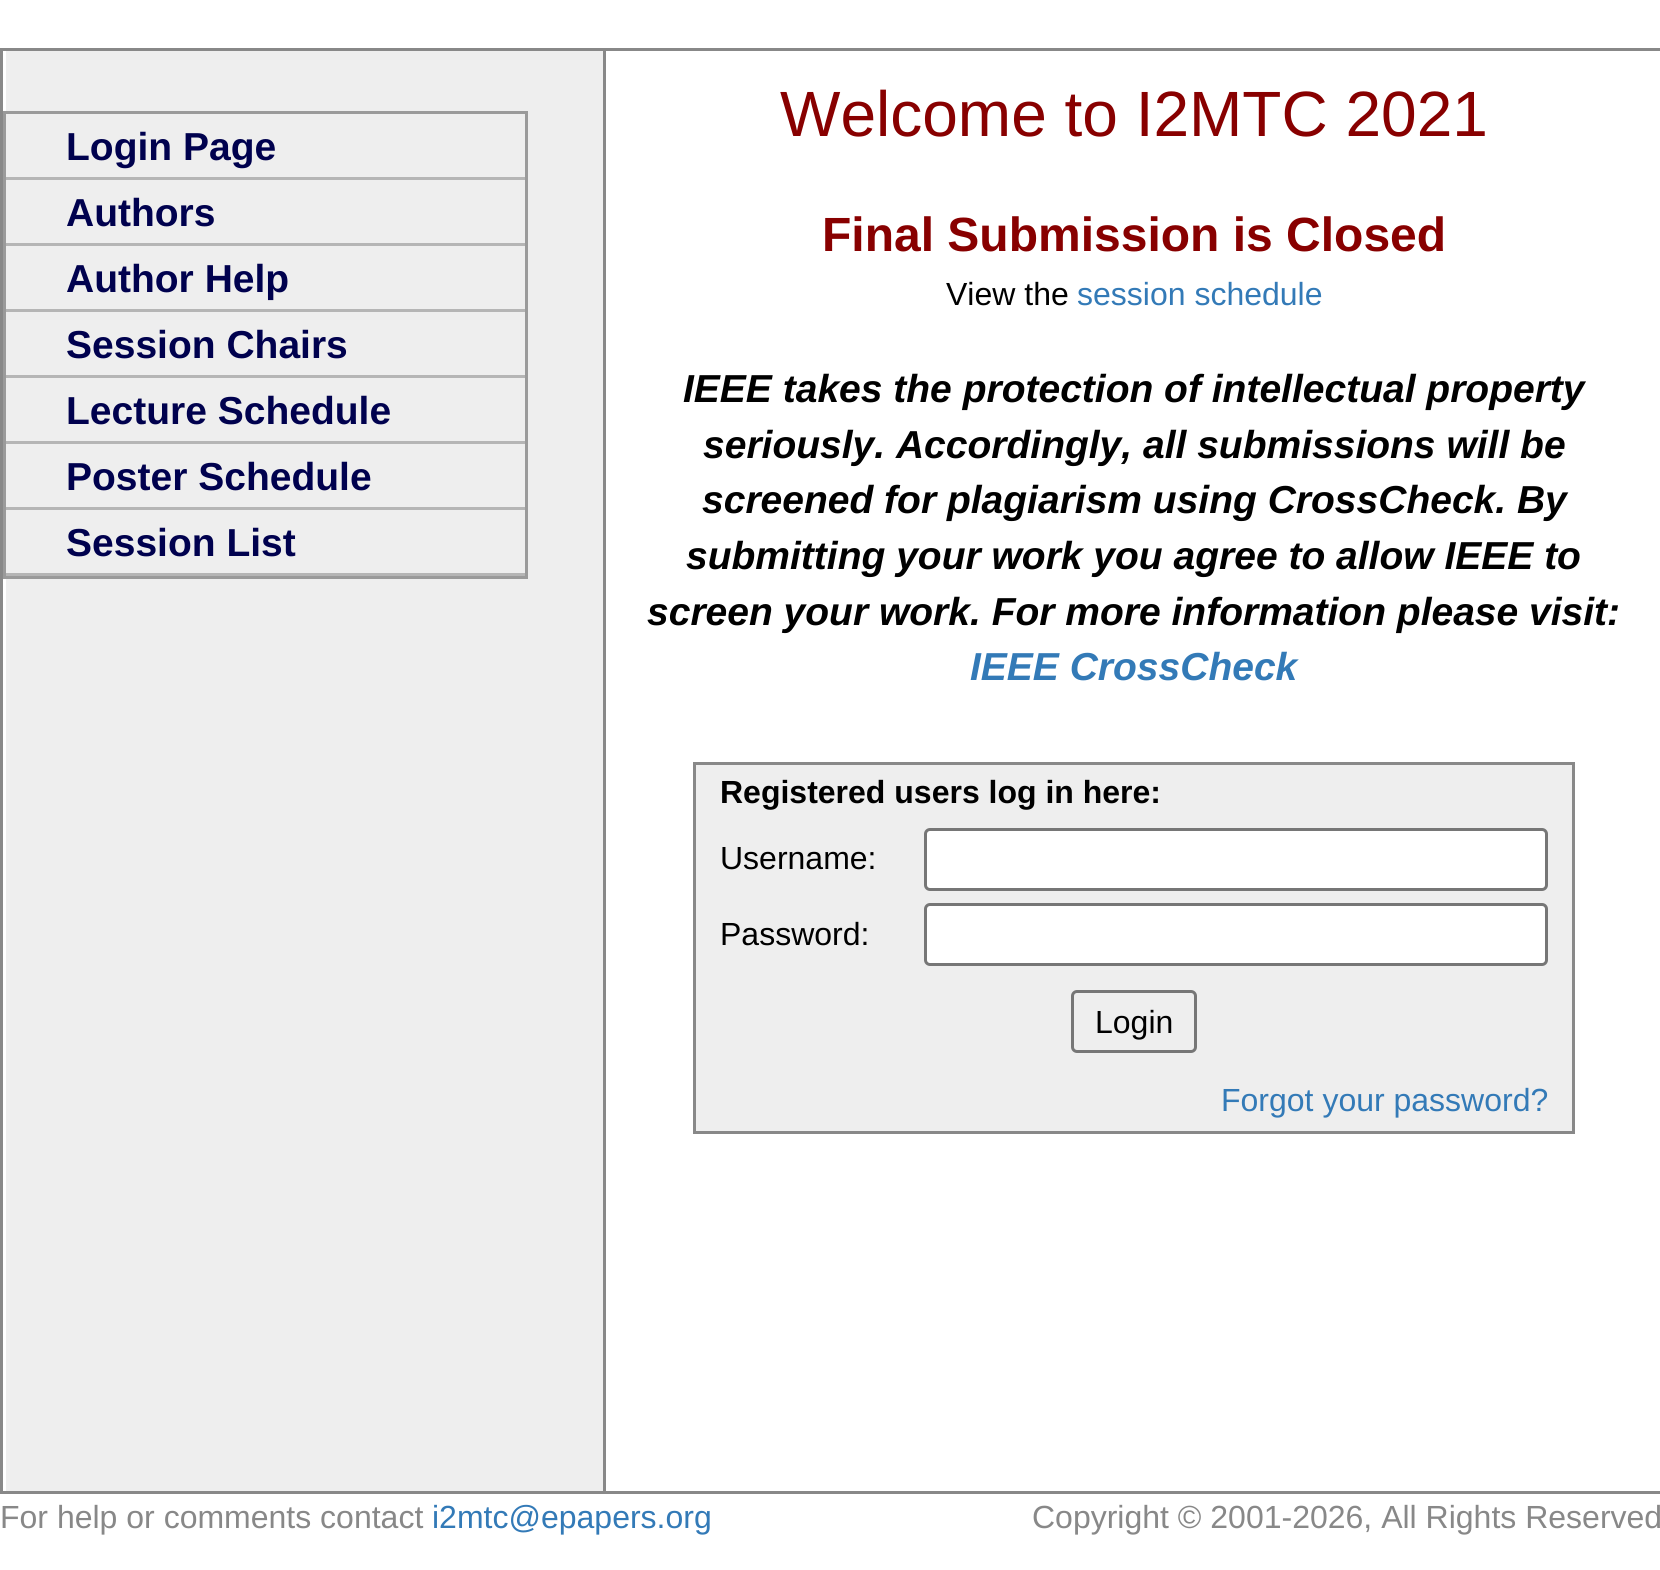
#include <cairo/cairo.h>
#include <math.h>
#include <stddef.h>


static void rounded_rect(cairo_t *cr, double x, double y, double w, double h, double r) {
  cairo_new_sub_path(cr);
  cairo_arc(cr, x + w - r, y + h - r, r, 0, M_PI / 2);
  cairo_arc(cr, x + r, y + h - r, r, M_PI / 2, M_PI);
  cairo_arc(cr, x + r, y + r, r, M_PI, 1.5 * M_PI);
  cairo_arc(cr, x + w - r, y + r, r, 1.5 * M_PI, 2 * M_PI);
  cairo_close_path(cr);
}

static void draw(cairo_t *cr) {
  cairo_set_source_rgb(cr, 1, 1, 1);
  cairo_paint(cr);
  cairo_set_source_rgb(cr, 136 / 255.0, 136 / 255.0, 136 / 255.0);
  cairo_rectangle(cr, 0, 48, 1660, 3);
  cairo_fill(cr);
  cairo_set_source_rgb(cr, 238 / 255.0, 238 / 255.0, 238 / 255.0);
  cairo_rectangle(cr, 6, 51, 597, 1440);
  cairo_fill(cr);
  cairo_set_source_rgb(cr, 136 / 255.0, 136 / 255.0, 136 / 255.0);
  cairo_rectangle(cr, 603, 51, 3, 1443);
  cairo_fill(cr);
  cairo_rectangle(cr, 0, 51, 3, 1443);
  cairo_fill(cr);
  cairo_rectangle(cr, 4.5, 112.5, 522, 465);
  cairo_set_source_rgb(cr, 154 / 255.0, 154 / 255.0, 154 / 255.0);
  cairo_set_line_width(cr, 3);
  cairo_stroke(cr);
  cairo_set_source_rgb(cr, 181 / 255.0, 181 / 255.0, 181 / 255.0);
  cairo_rectangle(cr, 6, 177, 519, 3);
  cairo_fill(cr);
  cairo_rectangle(cr, 6, 243, 519, 3);
  cairo_fill(cr);
  cairo_rectangle(cr, 6, 309, 519, 3);
  cairo_fill(cr);
  cairo_rectangle(cr, 6, 375, 519, 3);
  cairo_fill(cr);
  cairo_rectangle(cr, 6, 441, 519, 3);
  cairo_fill(cr);
  cairo_rectangle(cr, 6, 507, 519, 3);
  cairo_fill(cr);
  cairo_rectangle(cr, 6, 573, 519, 3);
  cairo_fill(cr);
  cairo_set_source_rgb(cr, 238 / 255.0, 238 / 255.0, 238 / 255.0);
  cairo_rectangle(cr, 696, 765, 876, 366);
  cairo_fill(cr);
  cairo_set_source_rgb(cr, 136 / 255.0, 136 / 255.0, 136 / 255.0);
  cairo_rectangle(cr, 693, 762, 882, 3);
  cairo_fill(cr);
  cairo_rectangle(cr, 1572, 762, 3, 372);
  cairo_fill(cr);
  cairo_rectangle(cr, 693, 1131, 882, 3);
  cairo_fill(cr);
  cairo_rectangle(cr, 693, 762, 3, 372);
  cairo_fill(cr);
  cairo_set_source_rgb(cr, 1, 1, 1);
  rounded_rect(cr, 925.5, 829.5, 621, 60, 4.5);
  cairo_fill_preserve(cr);
  cairo_set_source_rgb(cr, 118 / 255.0, 118 / 255.0, 118 / 255.0);
  cairo_stroke(cr);
  cairo_set_source_rgb(cr, 1, 1, 1);
  rounded_rect(cr, 925.5, 904.5, 621, 60, 4.5);
  cairo_fill_preserve(cr);
  cairo_set_source_rgb(cr, 118 / 255.0, 118 / 255.0, 118 / 255.0);
  cairo_stroke(cr);
  rounded_rect(cr, 1072.5, 991.5, 123, 60, 4.5);
  cairo_stroke(cr);
  cairo_set_source_rgb(cr, 136 / 255.0, 136 / 255.0, 136 / 255.0);
  cairo_rectangle(cr, 0, 1491, 1660, 3);
  cairo_fill(cr);
  cairo_select_font_face(cr, "Liberation Sans", CAIRO_FONT_SLANT_NORMAL, CAIRO_FONT_WEIGHT_BOLD);
  cairo_set_font_size(cr, 39);
  cairo_set_source_rgb(cr, 0, 1 / 255.0, 78 / 255.0);
  cairo_move_to(cr, 66, 160);
  cairo_show_text(cr, "Login Page");
  cairo_move_to(cr, 66, 226);
  cairo_show_text(cr, "Authors");
  cairo_move_to(cr, 66, 292);
  cairo_show_text(cr, "Author Help");
  cairo_move_to(cr, 66, 358);
  cairo_show_text(cr, "Session Chairs");
  cairo_move_to(cr, 66, 424);
  cairo_show_text(cr, "Lecture Schedule");
  cairo_move_to(cr, 66, 490);
  cairo_show_text(cr, "Poster Schedule");
  cairo_move_to(cr, 66, 556);
  cairo_show_text(cr, "Session List");
  cairo_select_font_face(cr, "Liberation Sans", CAIRO_FONT_SLANT_NORMAL, CAIRO_FONT_WEIGHT_NORMAL);
  cairo_set_font_size(cr, 64);
  cairo_set_source_rgb(cr, 136 / 255.0, 0, 0);
  cairo_move_to(cr, 780, 136);
  cairo_show_text(cr, "Welcome to I2MTC 2021");
  cairo_select_font_face(cr, "Liberation Sans", CAIRO_FONT_SLANT_NORMAL, CAIRO_FONT_WEIGHT_BOLD);
  cairo_set_font_size(cr, 48);
  cairo_move_to(cr, 822, 251);
  cairo_show_text(cr, "Final Submission is Closed");
  cairo_select_font_face(cr, "Liberation Sans", CAIRO_FONT_SLANT_NORMAL, CAIRO_FONT_WEIGHT_NORMAL);
  cairo_set_font_size(cr, 32);
  cairo_set_source_rgb(cr, 0, 0, 0);
  cairo_move_to(cr, 946, 305);
  cairo_show_text(cr, "View the");
  cairo_set_source_rgb(cr, 51 / 255.0, 122 / 255.0, 183 / 255.0);
  cairo_move_to(cr, 1077, 305);
  cairo_show_text(cr, "session schedule");
  cairo_select_font_face(cr, "Liberation Sans", CAIRO_FONT_SLANT_ITALIC, CAIRO_FONT_WEIGHT_BOLD);
  cairo_set_font_size(cr, 39);
  cairo_set_source_rgb(cr, 0, 0, 0);
  cairo_move_to(cr, 683, 402);
  cairo_show_text(cr, "IEEE takes the protection of intellectual property");
  cairo_move_to(cr, 703, 458);
  cairo_show_text(cr, "seriously. Accordingly, all submissions will be");
  cairo_move_to(cr, 702, 513);
  cairo_show_text(cr, "screened for plagiarism using CrossCheck. By");
  cairo_move_to(cr, 686, 569);
  cairo_show_text(cr, "submitting your work you agree to allow IEEE to");
  cairo_move_to(cr, 647, 625);
  cairo_show_text(cr, "screen your work. For more information please visit:");
  cairo_set_source_rgb(cr, 51 / 255.0, 122 / 255.0, 183 / 255.0);
  cairo_move_to(cr, 970, 680);
  cairo_show_text(cr, "IEEE CrossCheck");
  cairo_select_font_face(cr, "Liberation Sans", CAIRO_FONT_SLANT_NORMAL, CAIRO_FONT_WEIGHT_BOLD);
  cairo_set_font_size(cr, 32);
  cairo_set_source_rgb(cr, 0, 0, 0);
  cairo_move_to(cr, 720, 803);
  cairo_show_text(cr, "Registered users log in here:");
  cairo_select_font_face(cr, "Liberation Sans", CAIRO_FONT_SLANT_NORMAL, CAIRO_FONT_WEIGHT_NORMAL);
  cairo_move_to(cr, 720, 869);
  cairo_show_text(cr, "Username:");
  cairo_move_to(cr, 720, 945);
  cairo_show_text(cr, "Password:");
  cairo_move_to(cr, 1095, 1033);
  cairo_show_text(cr, "Login");
  cairo_set_source_rgb(cr, 51 / 255.0, 122 / 255.0, 183 / 255.0);
  cairo_move_to(cr, 1221, 1111);
  cairo_show_text(cr, "Forgot your password?");
  cairo_set_source_rgb(cr, 136 / 255.0, 136 / 255.0, 136 / 255.0);
  cairo_move_to(cr, 0, 1528);
  cairo_show_text(cr, "For help or comments contact");
  cairo_set_source_rgb(cr, 51 / 255.0, 122 / 255.0, 183 / 255.0);
  cairo_move_to(cr, 432, 1528);
  cairo_show_text(cr, "i2mtc@epapers.org");
  cairo_set_source_rgb(cr, 136 / 255.0, 136 / 255.0, 136 / 255.0);
  cairo_move_to(cr, 1032, 1528);
  cairo_show_text(cr, "Copyright © 2001-2026, All Rights Reserved");
}

int main(void) {
  cairo_surface_t *surface = cairo_image_surface_create(CAIRO_FORMAT_RGB24, 1660, 1570);
  cairo_t *cr = cairo_create(surface);
  cairo_font_options_t *options = cairo_font_options_create();
  cairo_font_options_set_hint_metrics(options, CAIRO_HINT_METRICS_OFF);
  cairo_font_options_set_hint_style(options, CAIRO_HINT_STYLE_NONE);
  cairo_set_font_options(cr, options);
  cairo_set_miter_limit(cr, 4);
  draw(cr);
  cairo_surface_write_to_png(surface, "out.png");
  cairo_font_options_destroy(options);
  cairo_destroy(cr);
  cairo_surface_destroy(surface);
  return 0;
}
